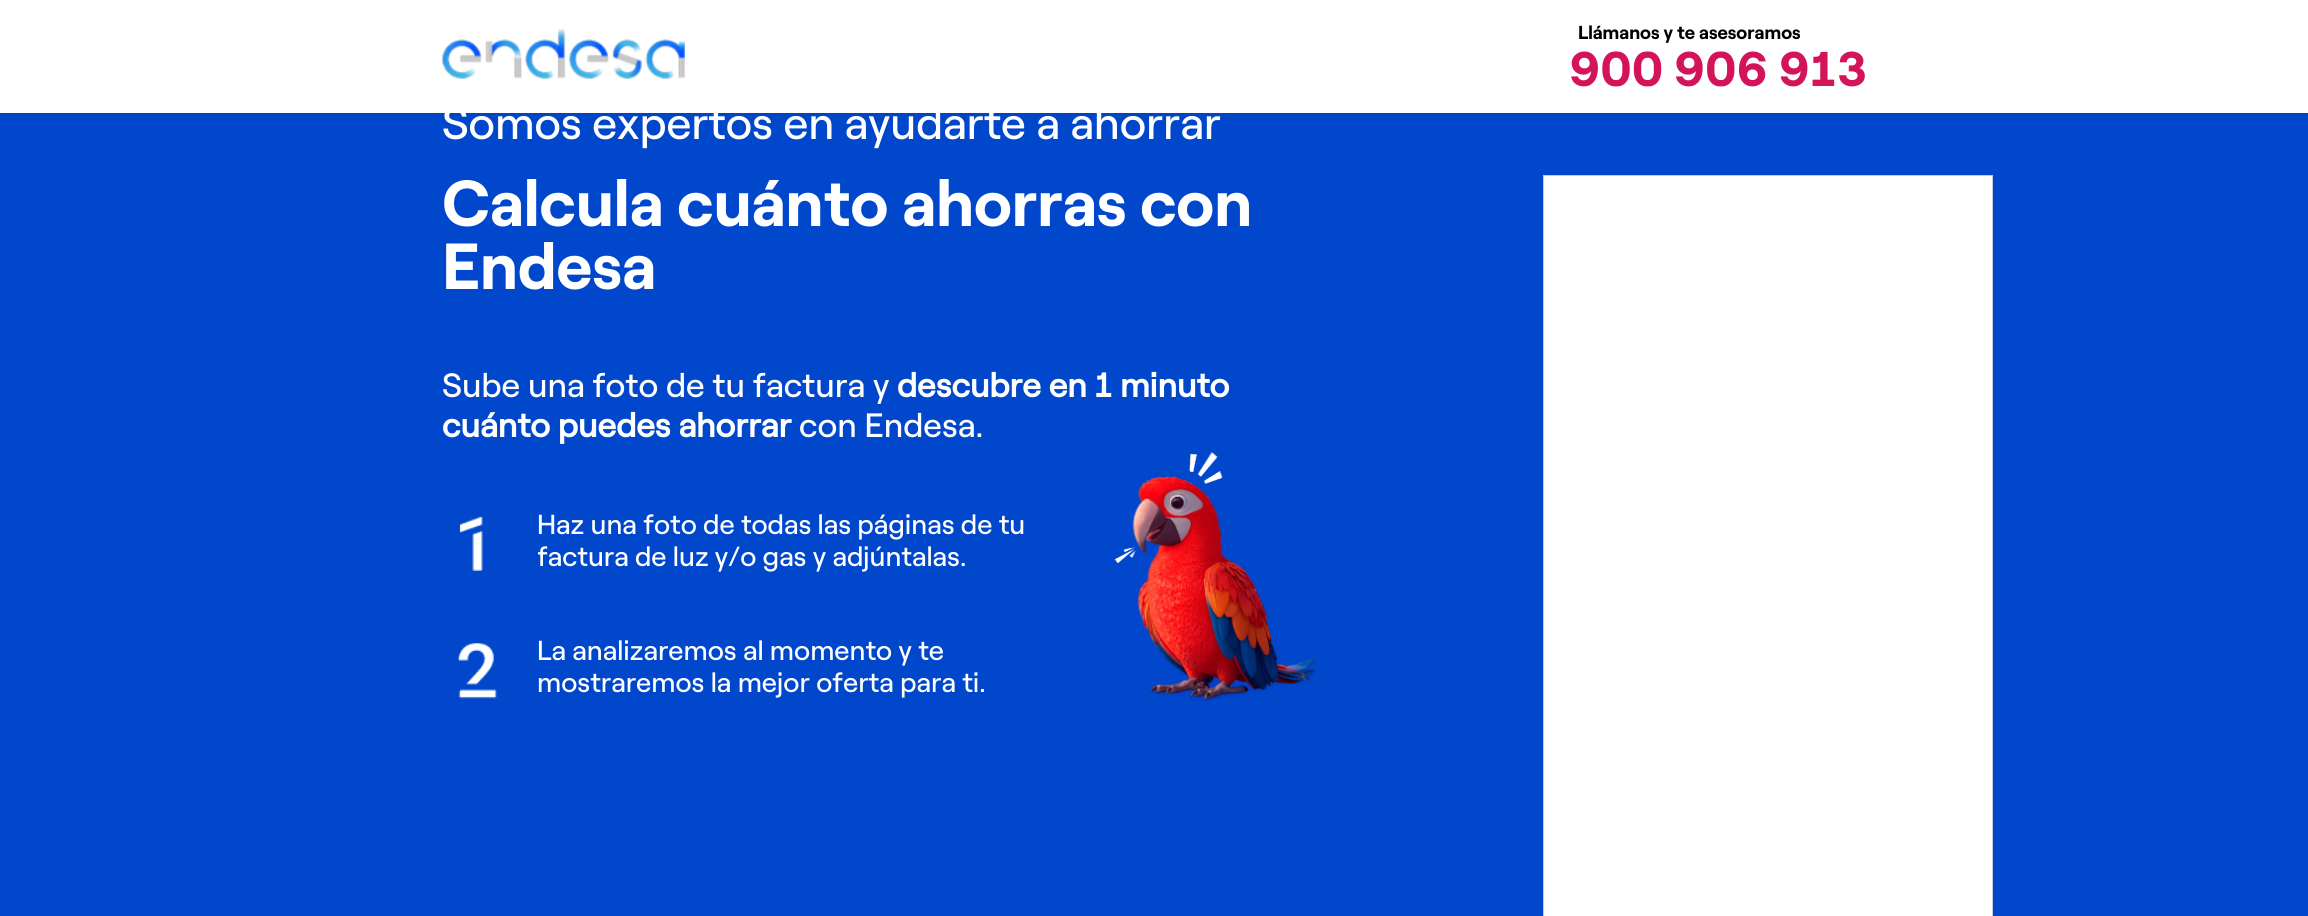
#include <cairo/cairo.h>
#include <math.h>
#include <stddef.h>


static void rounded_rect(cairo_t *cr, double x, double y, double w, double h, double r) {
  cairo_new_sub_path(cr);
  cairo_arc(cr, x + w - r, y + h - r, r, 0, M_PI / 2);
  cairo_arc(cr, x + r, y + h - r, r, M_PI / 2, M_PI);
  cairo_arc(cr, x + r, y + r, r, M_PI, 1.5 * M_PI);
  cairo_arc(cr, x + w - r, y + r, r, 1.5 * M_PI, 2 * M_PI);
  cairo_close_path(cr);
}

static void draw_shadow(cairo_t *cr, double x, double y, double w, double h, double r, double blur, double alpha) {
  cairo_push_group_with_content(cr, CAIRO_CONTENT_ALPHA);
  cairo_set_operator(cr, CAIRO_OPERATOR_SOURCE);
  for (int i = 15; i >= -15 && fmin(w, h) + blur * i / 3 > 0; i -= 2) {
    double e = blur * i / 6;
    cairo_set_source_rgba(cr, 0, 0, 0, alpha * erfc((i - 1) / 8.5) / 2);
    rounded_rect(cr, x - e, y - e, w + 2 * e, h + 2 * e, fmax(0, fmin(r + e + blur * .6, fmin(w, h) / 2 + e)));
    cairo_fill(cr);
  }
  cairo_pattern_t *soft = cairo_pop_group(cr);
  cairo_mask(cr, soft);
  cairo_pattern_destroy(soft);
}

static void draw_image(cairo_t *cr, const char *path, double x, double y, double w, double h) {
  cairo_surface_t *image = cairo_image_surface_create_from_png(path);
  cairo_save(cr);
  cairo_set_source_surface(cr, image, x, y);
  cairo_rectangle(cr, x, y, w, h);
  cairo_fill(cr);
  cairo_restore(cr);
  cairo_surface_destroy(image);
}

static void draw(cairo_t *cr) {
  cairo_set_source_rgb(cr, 0, 71 / 255.0, 204 / 255.0);
  cairo_paint(cr);
  cairo_set_source_rgb(cr, 14 / 255.0, 20 / 255.0, 26 / 255.0);
  draw_shadow(cr, -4, -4, 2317, 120, 0, 3, 0.08);
  cairo_set_source_rgb(cr, 1, 1, 1);
  cairo_rectangle(cr, 0, 0, 2308, 113);
  cairo_fill(cr);
  draw_image(cr, "images/1.png", 441, 28, 244, 51);
  draw_image(cr, "images/2.png", 459, 516, 24, 55);
  draw_image(cr, "images/3.png", 458, 643, 39, 56);
  cairo_rectangle(cr, 1543.5, 175.5, 449, 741);
  cairo_fill_preserve(cr);
  cairo_set_source_rgb(cr, 194 / 255.0, 205 / 255.0, 221 / 255.0);
  cairo_set_line_width(cr, 1);
  cairo_stroke(cr);
  draw_image(cr, "images/4.png", 1114, 452, 202, 249);
  cairo_select_font_face(cr, "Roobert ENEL", CAIRO_FONT_SLANT_NORMAL, CAIRO_FONT_WEIGHT_BOLD);
  cairo_set_font_size(cr, 18.75);
  cairo_set_source_rgb(cr, 0, 0, 0);
  cairo_move_to(cr, 1578, 39);
  cairo_show_text(cr, "Llámanos y te asesoramos");
  cairo_set_font_size(cr, 48.75);
  cairo_set_source_rgb(cr, 211 / 255.0, 19 / 255.0, 90 / 255.0);
  cairo_move_to(cr, 1569, 86);
  cairo_show_text(cr, "900 906 913");
  cairo_select_font_face(cr, "Roobert ENEL", CAIRO_FONT_SLANT_NORMAL, CAIRO_FONT_WEIGHT_NORMAL);
  cairo_set_font_size(cr, 45);
  cairo_set_source_rgb(cr, 1, 1, 1);
  cairo_move_to(cr, 442, 139);
  cairo_show_text(cr, "Somos expertos en ayudarte a ahorrar");
  cairo_select_font_face(cr, "Roobert ENEL", CAIRO_FONT_SLANT_NORMAL, CAIRO_FONT_WEIGHT_BOLD);
  cairo_set_font_size(cr, 65);
  cairo_move_to(cr, 442, 226);
  cairo_show_text(cr, "Calcula cuánto ahorras con");
  cairo_move_to(cr, 442, 289);
  cairo_show_text(cr, "Endesa");
  cairo_select_font_face(cr, "Roobert ENEL", CAIRO_FONT_SLANT_NORMAL, CAIRO_FONT_WEIGHT_NORMAL);
  cairo_set_font_size(cr, 33.75);
  cairo_move_to(cr, 442, 397);
  cairo_show_text(cr, "Sube una foto de tu factura y");
  cairo_select_font_face(cr, "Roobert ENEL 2", CAIRO_FONT_SLANT_NORMAL, CAIRO_FONT_WEIGHT_BOLD);
  cairo_move_to(cr, 897, 397);
  cairo_show_text(cr, "descubre en 1 minuto");
  cairo_move_to(cr, 442, 437);
  cairo_show_text(cr, "cuánto puedes ahorrar");
  cairo_select_font_face(cr, "Roobert ENEL", CAIRO_FONT_SLANT_NORMAL, CAIRO_FONT_WEIGHT_NORMAL);
  cairo_move_to(cr, 799, 437);
  cairo_show_text(cr, "con Endesa.");
  cairo_set_font_size(cr, 27.5);
  cairo_move_to(cr, 537, 534);
  cairo_show_text(cr, "Haz una foto de todas las páginas de tu");
  cairo_save(cr);
  cairo_rectangle(cr, 538, 509, 536, 84);
  cairo_clip(cr);
  cairo_move_to(cr, 537, 566);
  cairo_show_text(cr, "factura de luz y/o gas y adjúntalas.");
  cairo_restore(cr);
  cairo_move_to(cr, 537, 660);
  cairo_show_text(cr, "La analizaremos al momento y te");
  cairo_move_to(cr, 537, 692);
  cairo_show_text(cr, "mostraremos la mejor oferta para ti.");
}

int main(void) {
  cairo_surface_t *surface = cairo_image_surface_create(CAIRO_FORMAT_RGB24, 2308, 916);
  cairo_t *cr = cairo_create(surface);
  cairo_font_options_t *options = cairo_font_options_create();
  cairo_font_options_set_hint_metrics(options, CAIRO_HINT_METRICS_OFF);
  cairo_font_options_set_hint_style(options, CAIRO_HINT_STYLE_NONE);
  cairo_set_font_options(cr, options);
  cairo_set_miter_limit(cr, 4);
  draw(cr);
  cairo_surface_write_to_png(surface, "out.png");
  cairo_font_options_destroy(options);
  cairo_destroy(cr);
  cairo_surface_destroy(surface);
  return 0;
}
